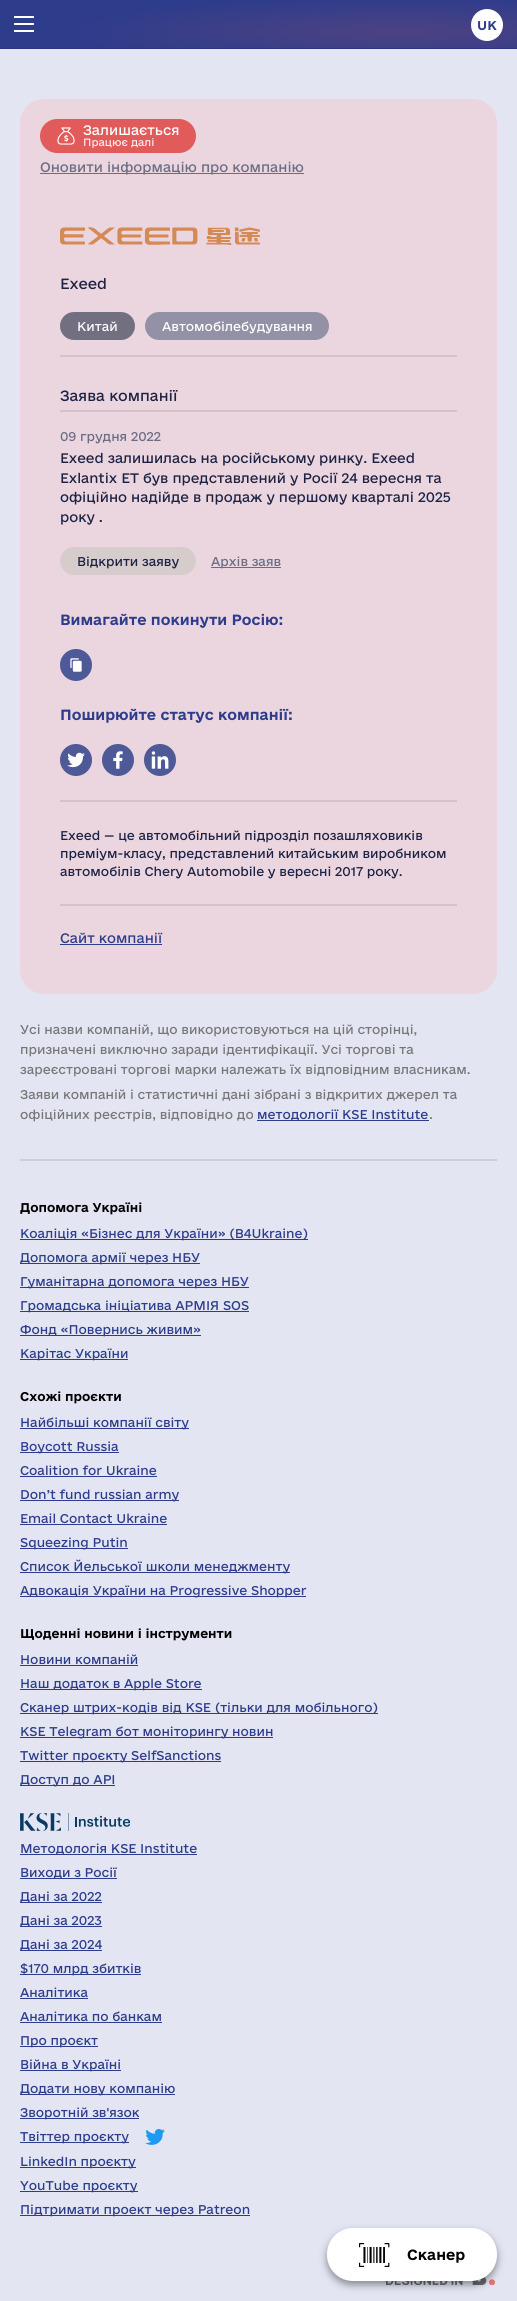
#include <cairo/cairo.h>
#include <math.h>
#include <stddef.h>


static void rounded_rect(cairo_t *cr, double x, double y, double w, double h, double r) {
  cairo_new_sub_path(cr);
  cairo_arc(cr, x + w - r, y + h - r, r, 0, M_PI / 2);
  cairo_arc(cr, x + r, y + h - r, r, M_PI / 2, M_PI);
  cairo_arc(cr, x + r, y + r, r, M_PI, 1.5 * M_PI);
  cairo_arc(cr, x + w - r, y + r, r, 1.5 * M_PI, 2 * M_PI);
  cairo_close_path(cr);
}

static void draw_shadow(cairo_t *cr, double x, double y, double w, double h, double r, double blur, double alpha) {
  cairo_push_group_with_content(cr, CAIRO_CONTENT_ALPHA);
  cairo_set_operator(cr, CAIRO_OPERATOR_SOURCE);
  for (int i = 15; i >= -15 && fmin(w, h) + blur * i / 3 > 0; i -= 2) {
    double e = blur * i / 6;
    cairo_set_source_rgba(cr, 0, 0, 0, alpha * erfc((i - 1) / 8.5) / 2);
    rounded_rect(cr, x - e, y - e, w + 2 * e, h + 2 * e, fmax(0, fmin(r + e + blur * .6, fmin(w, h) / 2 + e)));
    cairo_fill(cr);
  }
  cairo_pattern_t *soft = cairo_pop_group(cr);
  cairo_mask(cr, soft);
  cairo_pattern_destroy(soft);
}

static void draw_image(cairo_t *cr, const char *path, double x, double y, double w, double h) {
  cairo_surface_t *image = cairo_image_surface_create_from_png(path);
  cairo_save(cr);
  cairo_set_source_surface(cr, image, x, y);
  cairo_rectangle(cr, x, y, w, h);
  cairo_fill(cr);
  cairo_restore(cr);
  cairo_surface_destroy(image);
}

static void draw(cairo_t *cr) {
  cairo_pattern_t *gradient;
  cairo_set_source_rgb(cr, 227 / 255.0, 229 / 255.0, 243 / 255.0);
  cairo_paint(cr);
  cairo_set_source_rgb(cr, 41 / 255.0, 54 / 255.0, 125 / 255.0);
  cairo_rectangle(cr, 0, 48, 517, 1);
  cairo_fill(cr);
  gradient = cairo_pattern_create_radial(0, 0, 0, 0, 0, 1);
  cairo_pattern_set_matrix(gradient, &(cairo_matrix_t){1.0 / 694, 0, 0, 1.0 / 73, -1.0 * 399 / 694, -1.0 * 32 / 73});
  cairo_pattern_add_color_stop_rgba(gradient, 0, 77 / 255.0, 66 / 255.0, 131 / 255.0, 1);
  cairo_pattern_add_color_stop_rgba(gradient, 0.5, 45 / 255.0, 60 / 255.0, 139 / 255.0, 1);
  cairo_set_source(cr, gradient);
  cairo_pattern_destroy(gradient);
  cairo_rectangle(cr, 0, 0, 517, 48);
  cairo_fill(cr);
  cairo_set_source_rgb(cr, 1, 1, 1);
  cairo_rectangle(cr, 14, 16, 20, 2);
  cairo_fill(cr);
  cairo_rectangle(cr, 14, 23, 20, 2);
  cairo_fill(cr);
  cairo_rectangle(cr, 14, 30, 20, 2);
  cairo_fill(cr);
  cairo_arc(cr, 487, 25, 14.5, 0, 2 * M_PI);
  cairo_fill_preserve(cr);
  cairo_set_line_width(cr, 3);
  cairo_stroke(cr);
  cairo_set_source_rgb(cr, 235 / 255.0, 214 / 255.0, 224 / 255.0);
  rounded_rect(cr, 20, 99, 477, 895, 24);
  cairo_fill(cr);
  cairo_set_source_rgb(cr, 226 / 255.0, 91 / 255.0, 91 / 255.0);
  rounded_rect(cr, 41.5, 120.5, 153, 31, 15.5);
  cairo_fill_preserve(cr);
  cairo_stroke(cr);
  draw_image(cr, "images/1.png", 57, 127, 18, 18);
  cairo_set_source_rgb(cr, 106 / 255.0, 108 / 255.0, 130 / 255.0);
  cairo_rectangle(cr, 40, 173, 264, 1);
  cairo_fill(cr);
  draw_image(cr, "images/2.png", 60, 227, 200, 18);
  cairo_set_source_rgb(cr, 212 / 255.0, 193 / 255.0, 202 / 255.0);
  cairo_rectangle(cr, 60, 355, 397, 2);
  cairo_fill(cr);
  cairo_set_source_rgb(cr, 113 / 255.0, 111 / 255.0, 128 / 255.0);
  rounded_rect(cr, 61.5, 313.5, 72, 25, 12.5);
  cairo_fill_preserve(cr);
  cairo_stroke(cr);
  cairo_set_source_rgb(cr, 147 / 255.0, 145 / 255.0, 166 / 255.0);
  rounded_rect(cr, 146.5, 313.5, 181, 25, 12.5);
  cairo_fill_preserve(cr);
  cairo_stroke(cr);
  cairo_set_source_rgb(cr, 212 / 255.0, 193 / 255.0, 202 / 255.0);
  cairo_rectangle(cr, 60, 410, 397, 2);
  cairo_fill(cr);
  cairo_set_source_rgb(cr, 214 / 255.0, 204 / 255.0, 204 / 255.0);
  rounded_rect(cr, 61.5, 548.5, 133, 25, 12.5);
  cairo_fill_preserve(cr);
  cairo_stroke(cr);
  cairo_set_source_rgb(cr, 106 / 255.0, 108 / 255.0, 130 / 255.0);
  cairo_rectangle(cr, 211, 567, 70, 1);
  cairo_fill(cr);
  cairo_set_source_rgb(cr, 78 / 255.0, 90 / 255.0, 151 / 255.0);
  cairo_arc(cr, 76, 665, 16, 0, 2 * M_PI);
  cairo_fill(cr);
  draw_image(cr, "images/3.png", 70, 658, 12, 14);
  cairo_arc(cr, 76, 760, 16, 0, 2 * M_PI);
  cairo_fill(cr);
  draw_image(cr, "images/4.png", 67, 752, 18, 16);
  cairo_arc(cr, 118, 760, 16, 0, 2 * M_PI);
  cairo_fill(cr);
  draw_image(cr, "images/5.png", 113, 751, 10, 18);
  cairo_arc(cr, 160, 760, 16, 0, 2 * M_PI);
  cairo_fill(cr);
  draw_image(cr, "images/6.png", 151, 751, 18, 18);
  cairo_set_source_rgb(cr, 212 / 255.0, 193 / 255.0, 202 / 255.0);
  cairo_rectangle(cr, 60, 800, 397, 2);
  cairo_fill(cr);
  cairo_rectangle(cr, 60, 904, 397, 2);
  cairo_fill(cr);
  cairo_set_source_rgb(cr, 45 / 255.0, 60 / 255.0, 139 / 255.0);
  cairo_rectangle(cr, 60, 944, 102, 1);
  cairo_fill(cr);
  cairo_rectangle(cr, 257, 1120, 172, 1);
  cairo_fill(cr);
  cairo_set_source_rgb(cr, 204 / 255.0, 206 / 255.0, 219 / 255.0);
  cairo_rectangle(cr, 20, 1159, 477, 2);
  cairo_fill(cr);
  cairo_set_source_rgb(cr, 45 / 255.0, 60 / 255.0, 139 / 255.0);
  cairo_rectangle(cr, 20, 1239, 288, 1);
  cairo_fill(cr);
  cairo_rectangle(cr, 20, 1263, 180, 1);
  cairo_fill(cr);
  cairo_rectangle(cr, 20, 1287, 229, 1);
  cairo_fill(cr);
  cairo_rectangle(cr, 20, 1311, 229, 1);
  cairo_fill(cr);
  cairo_rectangle(cr, 20, 1335, 181, 1);
  cairo_fill(cr);
  cairo_rectangle(cr, 20, 1359, 108, 1);
  cairo_fill(cr);
  cairo_rectangle(cr, 20, 1428, 169, 1);
  cairo_fill(cr);
  cairo_rectangle(cr, 20, 1452, 99, 1);
  cairo_fill(cr);
  cairo_rectangle(cr, 20, 1476, 137, 1);
  cairo_fill(cr);
  cairo_rectangle(cr, 20, 1500, 159, 1);
  cairo_fill(cr);
  cairo_rectangle(cr, 20, 1524, 147, 1);
  cairo_fill(cr);
  cairo_rectangle(cr, 20, 1548, 108, 1);
  cairo_fill(cr);
  cairo_rectangle(cr, 20, 1572, 270, 1);
  cairo_fill(cr);
  cairo_rectangle(cr, 20, 1596, 286, 1);
  cairo_fill(cr);
  cairo_rectangle(cr, 20, 1665, 118, 1);
  cairo_fill(cr);
  cairo_rectangle(cr, 20, 1689, 182, 1);
  cairo_fill(cr);
  cairo_rectangle(cr, 20, 1713, 358, 1);
  cairo_fill(cr);
  cairo_rectangle(cr, 20, 1737, 253, 1);
  cairo_fill(cr);
  cairo_rectangle(cr, 20, 1761, 201, 1);
  cairo_fill(cr);
  cairo_rectangle(cr, 20, 1785, 95, 1);
  cairo_fill(cr);
  draw_image(cr, "images/7.png", 20, 1813, 110, 18);
  cairo_rectangle(cr, 20, 1854, 177, 1);
  cairo_fill(cr);
  cairo_rectangle(cr, 20, 1878, 97, 1);
  cairo_fill(cr);
  cairo_rectangle(cr, 20, 1902, 82, 1);
  cairo_fill(cr);
  cairo_rectangle(cr, 20, 1926, 82, 1);
  cairo_fill(cr);
  cairo_rectangle(cr, 20, 1950, 82, 1);
  cairo_fill(cr);
  cairo_rectangle(cr, 20, 1974, 121, 1);
  cairo_fill(cr);
  cairo_rectangle(cr, 20, 1998, 68, 1);
  cairo_fill(cr);
  cairo_rectangle(cr, 20, 2022, 142, 1);
  cairo_fill(cr);
  cairo_rectangle(cr, 20, 2046, 78, 1);
  cairo_fill(cr);
  cairo_rectangle(cr, 20, 2070, 101, 1);
  cairo_fill(cr);
  cairo_rectangle(cr, 20, 2094, 155, 1);
  cairo_fill(cr);
  cairo_rectangle(cr, 20, 2118, 119, 1);
  cairo_fill(cr);
  cairo_rectangle(cr, 20, 2142, 109, 1);
  cairo_fill(cr);
  draw_image(cr, "images/8.png", 145, 2129, 20, 16);
  cairo_rectangle(cr, 20, 2167, 116, 1);
  cairo_fill(cr);
  cairo_rectangle(cr, 20, 2191, 118, 1);
  cairo_fill(cr);
  cairo_rectangle(cr, 20, 2215, 230, 1);
  cairo_fill(cr);
  draw_image(cr, "images/10.png", 386, 2276, 109, 9);
  cairo_set_source_rgb(cr, 0, 0, 0);
  draw_shadow(cr, 327, 2232, 170, 53, 26, 4, 0.4);
  cairo_set_source_rgb(cr, 1, 1, 1);
  rounded_rect(cr, 327, 2228, 170, 53, 26);
  cairo_fill(cr);
  draw_image(cr, "images/9.png", 359, 2243, 31, 24);
  cairo_select_font_face(cr, "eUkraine", CAIRO_FONT_SLANT_NORMAL, CAIRO_FONT_WEIGHT_BOLD);
  cairo_set_font_size(cr, 12);
  cairo_set_source_rgb(cr, 45 / 255.0, 60 / 255.0, 139 / 255.0);
  cairo_move_to(cr, 477, 30);
  cairo_show_text(cr, "UK");
  cairo_select_font_face(cr, "eUkraine", CAIRO_FONT_SLANT_NORMAL, CAIRO_FONT_WEIGHT_NORMAL);
  cairo_set_font_size(cr, 13);
  cairo_set_source_rgb(cr, 1, 1, 1);
  cairo_move_to(cr, 83, 135);
  cairo_show_text(cr, "Залишається");
  cairo_set_font_size(cr, 10);
  cairo_set_source_rgb(cr, 252 / 255.0, 239 / 255.0, 239 / 255.0);
  cairo_move_to(cr, 83, 146);
  cairo_show_text(cr, "Працює далі");
  cairo_set_font_size(cr, 13);
  cairo_set_source_rgb(cr, 106 / 255.0, 109 / 255.0, 131 / 255.0);
  cairo_move_to(cr, 40, 172);
  cairo_show_text(cr, "Оновити інформацію про компанію");
  cairo_set_font_size(cr, 14);
  cairo_set_source_rgb(cr, 28 / 255.0, 34 / 255.0, 67 / 255.0);
  cairo_move_to(cr, 60, 289);
  cairo_show_text(cr, "Exeed");
  cairo_set_font_size(cr, 12);
  cairo_set_source_rgb(cr, 1, 1, 1);
  cairo_move_to(cr, 77, 331);
  cairo_show_text(cr, "Китай");
  cairo_move_to(cr, 162, 331);
  cairo_show_text(cr, "Автомобілебудування");
  cairo_set_font_size(cr, 14);
  cairo_set_source_rgb(cr, 28 / 255.0, 34 / 255.0, 67 / 255.0);
  cairo_move_to(cr, 60, 401);
  cairo_show_text(cr, "Заява компанії");
  cairo_set_font_size(cr, 12);
  cairo_set_source_rgb(cr, 106 / 255.0, 109 / 255.0, 131 / 255.0);
  cairo_move_to(cr, 60, 441);
  cairo_show_text(cr, "09 грудня 2022");
  cairo_set_font_size(cr, 13);
  cairo_set_source_rgb(cr, 28 / 255.0, 34 / 255.0, 67 / 255.0);
  cairo_move_to(cr, 60, 463);
  cairo_show_text(cr, "Exeed залишилась на російському ринку. Exeed");
  cairo_move_to(cr, 60, 483);
  cairo_show_text(cr, "Exlantix ET був представлений у Росії 24 вересня та");
  cairo_move_to(cr, 60, 502);
  cairo_show_text(cr, "офіційно надійде в продаж у першому кварталі 2025");
  cairo_move_to(cr, 60, 522);
  cairo_show_text(cr, "року .");
  cairo_set_font_size(cr, 12);
  cairo_move_to(cr, 77, 566);
  cairo_show_text(cr, "Відкрити заяву");
  cairo_set_source_rgb(cr, 106 / 255.0, 109 / 255.0, 131 / 255.0);
  cairo_move_to(cr, 211, 566);
  cairo_show_text(cr, "Архів заяв");
  cairo_select_font_face(cr, "eUkraine", CAIRO_FONT_SLANT_NORMAL, CAIRO_FONT_WEIGHT_BOLD);
  cairo_set_font_size(cr, 14);
  cairo_set_source_rgb(cr, 45 / 255.0, 60 / 255.0, 139 / 255.0);
  cairo_move_to(cr, 60, 625);
  cairo_show_text(cr, "Вимагайте покинути Росію:");
  cairo_move_to(cr, 60, 720);
  cairo_show_text(cr, "Поширюйте статус компанії:");
  cairo_select_font_face(cr, "eUkraine", CAIRO_FONT_SLANT_NORMAL, CAIRO_FONT_WEIGHT_NORMAL);
  cairo_set_font_size(cr, 12);
  cairo_set_source_rgb(cr, 28 / 255.0, 34 / 255.0, 67 / 255.0);
  cairo_move_to(cr, 60, 840);
  cairo_show_text(cr, "Exeed — це автомобільний підрозділ позашляховиків");
  cairo_move_to(cr, 60, 858);
  cairo_show_text(cr, "преміум-класу, представлений китайським виробником");
  cairo_move_to(cr, 60, 876);
  cairo_show_text(cr, "автомобілів Chery Automobile у вересні 2017 року.");
  cairo_set_font_size(cr, 13);
  cairo_set_source_rgb(cr, 45 / 255.0, 60 / 255.0, 139 / 255.0);
  cairo_move_to(cr, 60, 943);
  cairo_show_text(cr, "Сайт компанії");
  cairo_set_font_size(cr, 12);
  cairo_set_source_rgb(cr, 119 / 255.0, 119 / 255.0, 119 / 255.0);
  cairo_move_to(cr, 20, 1034);
  cairo_show_text(cr, "Усі назви компаній, що використовуються на цій сторінці,");
  cairo_move_to(cr, 20, 1054);
  cairo_show_text(cr, "призначені виключно заради ідентифікації. Усі торгові та");
  cairo_move_to(cr, 20, 1074);
  cairo_show_text(cr, "зареєстровані торгові марки належать їх відповідним власникам.");
  cairo_move_to(cr, 20, 1099);
  cairo_show_text(cr, "Заяви компаній i статистичні дані зібрані з відкритих джерел та");
  cairo_move_to(cr, 20, 1119);
  cairo_show_text(cr, "офіційних реєстрів, відповідно до");
  cairo_set_source_rgb(cr, 45 / 255.0, 60 / 255.0, 139 / 255.0);
  cairo_move_to(cr, 257, 1119);
  cairo_show_text(cr, "методології KSE Institute");
  cairo_set_source_rgb(cr, 119 / 255.0, 119 / 255.0, 119 / 255.0);
  cairo_move_to(cr, 429, 1119);
  cairo_show_text(cr, ".");
  cairo_select_font_face(cr, "eUkraine", CAIRO_FONT_SLANT_NORMAL, CAIRO_FONT_WEIGHT_BOLD);
  cairo_set_source_rgb(cr, 0, 0, 0);
  cairo_move_to(cr, 20, 1212);
  cairo_show_text(cr, "Допомога Україні");
  cairo_select_font_face(cr, "eUkraine", CAIRO_FONT_SLANT_NORMAL, CAIRO_FONT_WEIGHT_NORMAL);
  cairo_set_source_rgb(cr, 45 / 255.0, 60 / 255.0, 139 / 255.0);
  cairo_move_to(cr, 20, 1238);
  cairo_show_text(cr, "Коаліція «Бізнес для України» (B4Ukraine)");
  cairo_move_to(cr, 20, 1262);
  cairo_show_text(cr, "Допомога армії через НБУ");
  cairo_move_to(cr, 20, 1286);
  cairo_show_text(cr, "Гуманітарна допомога через НБУ");
  cairo_move_to(cr, 20, 1310);
  cairo_show_text(cr, "Громадська ініціатива АРМІЯ SOS");
  cairo_move_to(cr, 20, 1334);
  cairo_show_text(cr, "Фонд «Повернись живим»");
  cairo_move_to(cr, 20, 1358);
  cairo_show_text(cr, "Карітас України");
  cairo_select_font_face(cr, "eUkraine", CAIRO_FONT_SLANT_NORMAL, CAIRO_FONT_WEIGHT_BOLD);
  cairo_set_source_rgb(cr, 0, 0, 0);
  cairo_move_to(cr, 20, 1401);
  cairo_show_text(cr, "Схожі проєкти");
  cairo_select_font_face(cr, "eUkraine", CAIRO_FONT_SLANT_NORMAL, CAIRO_FONT_WEIGHT_NORMAL);
  cairo_set_source_rgb(cr, 45 / 255.0, 60 / 255.0, 139 / 255.0);
  cairo_move_to(cr, 20, 1427);
  cairo_show_text(cr, "Найбільші компанії світу");
  cairo_move_to(cr, 20, 1451);
  cairo_show_text(cr, "Boycott Russia");
  cairo_move_to(cr, 20, 1475);
  cairo_show_text(cr, "Coalition for Ukraine");
  cairo_move_to(cr, 20, 1499);
  cairo_show_text(cr, "Don’t fund russian army");
  cairo_move_to(cr, 20, 1523);
  cairo_show_text(cr, "Email Contact Ukraine");
  cairo_move_to(cr, 20, 1547);
  cairo_show_text(cr, "Squeezing Putin");
  cairo_move_to(cr, 20, 1571);
  cairo_show_text(cr, "Список Йельської школи менеджменту");
  cairo_move_to(cr, 20, 1595);
  cairo_show_text(cr, "Адвокація України на Progressive Shopper");
  cairo_select_font_face(cr, "eUkraine", CAIRO_FONT_SLANT_NORMAL, CAIRO_FONT_WEIGHT_BOLD);
  cairo_set_source_rgb(cr, 0, 0, 0);
  cairo_move_to(cr, 20, 1638);
  cairo_show_text(cr, "Щоденні новини і інструменти");
  cairo_select_font_face(cr, "eUkraine", CAIRO_FONT_SLANT_NORMAL, CAIRO_FONT_WEIGHT_NORMAL);
  cairo_set_source_rgb(cr, 45 / 255.0, 60 / 255.0, 139 / 255.0);
  cairo_move_to(cr, 20, 1664);
  cairo_show_text(cr, "Новини компаній");
  cairo_move_to(cr, 20, 1688);
  cairo_show_text(cr, "Наш додаток в Apple Store");
  cairo_move_to(cr, 20, 1712);
  cairo_show_text(cr, "Сканер штрих-кодів від KSE (тільки для мобільного)");
  cairo_move_to(cr, 20, 1736);
  cairo_show_text(cr, "KSE Telegram бот моніторингу новин");
  cairo_move_to(cr, 20, 1760);
  cairo_show_text(cr, "Twitter проєкту SelfSanctions");
  cairo_move_to(cr, 20, 1784);
  cairo_show_text(cr, "Доступ до API");
  cairo_move_to(cr, 20, 1853);
  cairo_show_text(cr, "Методологія KSE Institute");
  cairo_move_to(cr, 20, 1877);
  cairo_show_text(cr, "Виходи з Росії");
  cairo_move_to(cr, 20, 1901);
  cairo_show_text(cr, "Дані за 2022");
  cairo_move_to(cr, 20, 1925);
  cairo_show_text(cr, "Дані за 2023");
  cairo_move_to(cr, 20, 1949);
  cairo_show_text(cr, "Дані за 2024");
  cairo_move_to(cr, 20, 1973);
  cairo_show_text(cr, "$170 млрд збитків");
  cairo_move_to(cr, 20, 1997);
  cairo_show_text(cr, "Аналітика");
  cairo_move_to(cr, 20, 2021);
  cairo_show_text(cr, "Аналітика по банкам");
  cairo_move_to(cr, 20, 2045);
  cairo_show_text(cr, "Про проєкт");
  cairo_move_to(cr, 20, 2069);
  cairo_show_text(cr, "Війна в Україні");
  cairo_move_to(cr, 20, 2093);
  cairo_show_text(cr, "Додати нову компанію");
  cairo_move_to(cr, 20, 2117);
  cairo_show_text(cr, "Зворотній зв'язок");
  cairo_move_to(cr, 20, 2141);
  cairo_show_text(cr, "Твіттер проєкту");
  cairo_move_to(cr, 20, 2166);
  cairo_show_text(cr, "LinkedIn проєкту");
  cairo_move_to(cr, 20, 2190);
  cairo_show_text(cr, "YouTube проєкту");
  cairo_move_to(cr, 20, 2214);
  cairo_show_text(cr, "Підтримати проект через Patreon");
  cairo_select_font_face(cr, "eUkraine", CAIRO_FONT_SLANT_NORMAL, CAIRO_FONT_WEIGHT_BOLD);
  cairo_set_font_size(cr, 14);
  cairo_set_source_rgb(cr, 0, 0, 0);
  cairo_move_to(cr, 407, 2260);
  cairo_show_text(cr, "Сканер");
}

int main(void) {
  cairo_surface_t *surface = cairo_image_surface_create(CAIRO_FORMAT_RGB24, 517, 2301);
  cairo_t *cr = cairo_create(surface);
  cairo_font_options_t *options = cairo_font_options_create();
  cairo_font_options_set_hint_metrics(options, CAIRO_HINT_METRICS_OFF);
  cairo_font_options_set_hint_style(options, CAIRO_HINT_STYLE_NONE);
  cairo_set_font_options(cr, options);
  cairo_set_miter_limit(cr, 4);
  draw(cr);
  cairo_surface_write_to_png(surface, "out.png");
  cairo_font_options_destroy(options);
  cairo_destroy(cr);
  cairo_surface_destroy(surface);
  return 0;
}
